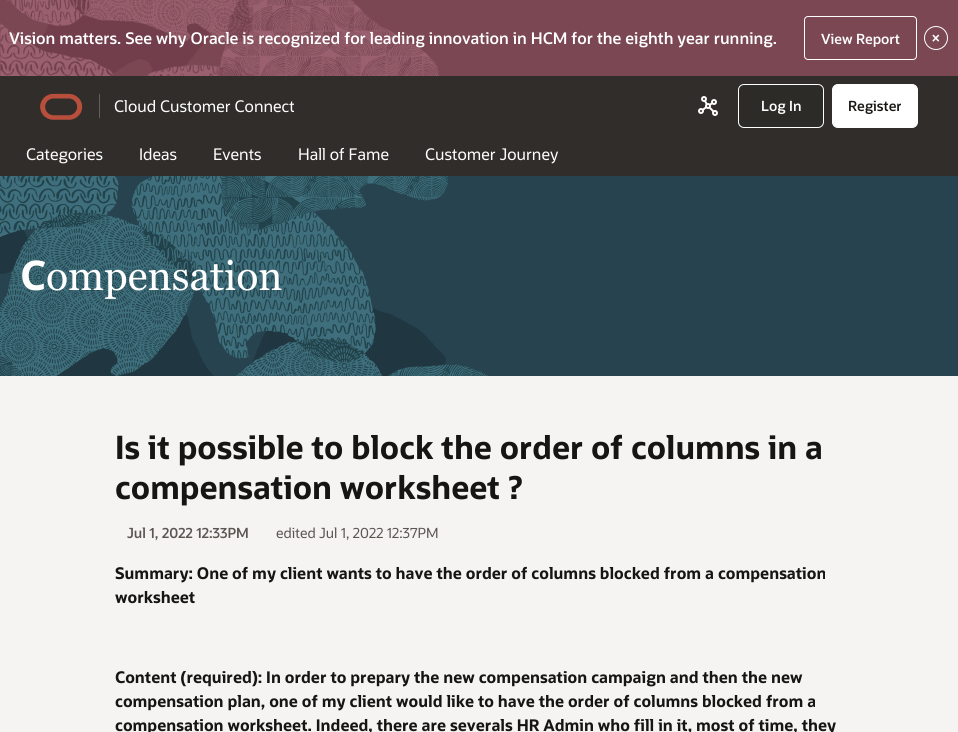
#include <cairo/cairo.h>
#include <math.h>
#include <stddef.h>


static void rounded_rect(cairo_t *cr, double x, double y, double w, double h, double r) {
  cairo_new_sub_path(cr);
  cairo_arc(cr, x + w - r, y + h - r, r, 0, M_PI / 2);
  cairo_arc(cr, x + r, y + h - r, r, M_PI / 2, M_PI);
  cairo_arc(cr, x + r, y + r, r, M_PI, 1.5 * M_PI);
  cairo_arc(cr, x + w - r, y + r, r, 1.5 * M_PI, 2 * M_PI);
  cairo_close_path(cr);
}

static void draw_image(cairo_t *cr, const char *path, double x, double y, double w, double h) {
  cairo_surface_t *image = cairo_image_surface_create_from_png(path);
  cairo_save(cr);
  cairo_set_source_surface(cr, image, x, y);
  cairo_rectangle(cr, x, y, w, h);
  cairo_fill(cr);
  cairo_restore(cr);
  cairo_surface_destroy(image);
}

static void draw(cairo_t *cr) {
  cairo_set_source_rgb(cr, 245 / 255.0, 244 / 255.0, 242 / 255.0);
  cairo_paint(cr);
  cairo_set_source_rgb(cr, 122 / 255.0, 71 / 255.0, 83 / 255.0);
  cairo_rectangle(cr, 439, 0, 519, 76);
  cairo_fill(cr);
  draw_image(cr, "images/1.png", 0, 0, 439, 76);
  rounded_rect(cr, 804.5, 16.5, 112, 43, 3.5);
  cairo_set_source_rgb(cr, 1, 1, 1);
  cairo_set_line_width(cr, 1);
  cairo_stroke(cr);
  cairo_arc(cr, 936, 38, 11.5, 0, 2 * M_PI);
  cairo_stroke(cr);
  cairo_set_source_rgb(cr, 48 / 255.0, 45 / 255.0, 42 / 255.0);
  cairo_rectangle(cr, 0, 76, 958, 60);
  cairo_fill(cr);
  draw_image(cr, "images/2.png", 40, 93, 43, 27);
  cairo_set_source_rgb(cr, 102 / 255.0, 95 / 255.0, 91 / 255.0);
  cairo_rectangle(cr, 99, 94, 1, 24);
  cairo_fill(cr);
  draw_image(cr, "images/3.png", 698, 96, 20, 20);
  cairo_set_source_rgb(cr, 45 / 255.0, 43 / 255.0, 40 / 255.0);
  rounded_rect(cr, 738.5, 84.5, 85, 43, 5.5);
  cairo_fill_preserve(cr);
  cairo_set_source_rgb(cr, 1, 1, 1);
  cairo_stroke(cr);
  rounded_rect(cr, 832.5, 84.5, 85, 43, 5.5);
  cairo_fill_preserve(cr);
  cairo_stroke(cr);
  cairo_set_source_rgb(cr, 49 / 255.0, 45 / 255.0, 42 / 255.0);
  cairo_rectangle(cr, 0, 136, 958, 40);
  cairo_fill(cr);
  cairo_set_source_rgb(cr, 40 / 255.0, 67 / 255.0, 80 / 255.0);
  cairo_rectangle(cr, 488, 176, 470, 200);
  cairo_fill(cr);
  draw_image(cr, "images/4.png", 0, 176, 488, 200);
  cairo_select_font_face(cr, "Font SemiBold", CAIRO_FONT_SLANT_NORMAL, CAIRO_FONT_WEIGHT_NORMAL);
  cairo_set_font_size(cr, 16);
  cairo_set_source_rgb(cr, 1, 1, 1);
  cairo_move_to(cr, 9, 44);
  cairo_show_text(cr, "Vision matters. See why Oracle is recognized for leading innovation in HCM for the eighth year running.");
  cairo_set_font_size(cr, 14);
  cairo_move_to(cr, 821, 44);
  cairo_show_text(cr, "View Report");
  cairo_set_font_size(cr, 16);
  cairo_move_to(cr, 931, 44);
  cairo_show_text(cr, "×");
  cairo_select_font_face(cr, "Font", CAIRO_FONT_SLANT_NORMAL, CAIRO_FONT_WEIGHT_NORMAL);
  cairo_move_to(cr, 114, 112);
  cairo_show_text(cr, "Cloud Customer Connect");
  cairo_select_font_face(cr, "Font SemiBold", CAIRO_FONT_SLANT_NORMAL, CAIRO_FONT_WEIGHT_NORMAL);
  cairo_set_font_size(cr, 14);
  cairo_move_to(cr, 761, 111);
  cairo_show_text(cr, "Log In");
  cairo_set_source_rgb(cr, 22 / 255.0, 21 / 255.0, 19 / 255.0);
  cairo_move_to(cr, 848, 111);
  cairo_show_text(cr, "Register");
  cairo_select_font_face(cr, "Font", CAIRO_FONT_SLANT_NORMAL, CAIRO_FONT_WEIGHT_NORMAL);
  cairo_set_font_size(cr, 16);
  cairo_set_source_rgb(cr, 1, 1, 1);
  cairo_move_to(cr, 26, 160);
  cairo_show_text(cr, "Categories");
  cairo_move_to(cr, 139, 160);
  cairo_show_text(cr, "Ideas");
  cairo_move_to(cr, 213, 160);
  cairo_show_text(cr, "Events");
  cairo_move_to(cr, 298, 160);
  cairo_show_text(cr, "Hall of Fame");
  cairo_move_to(cr, 425, 160);
  cairo_show_text(cr, "Customer Journey");
  cairo_select_font_face(cr, "Noto Sans", CAIRO_FONT_SLANT_NORMAL, CAIRO_FONT_WEIGHT_BOLD);
  cairo_set_font_size(cr, 41);
  cairo_move_to(cr, 20, 290);
  cairo_show_text(cr, "C");
  cairo_select_font_face(cr, "Georgia", CAIRO_FONT_SLANT_NORMAL, CAIRO_FONT_WEIGHT_NORMAL);
  cairo_move_to(cr, 46, 290);
  cairo_show_text(cr, "ompensation");
  cairo_select_font_face(cr, "Font", CAIRO_FONT_SLANT_NORMAL, CAIRO_FONT_WEIGHT_BOLD);
  cairo_set_font_size(cr, 32);
  cairo_set_source_rgb(cr, 22 / 255.0, 21 / 255.0, 19 / 255.0);
  cairo_move_to(cr, 115, 459);
  cairo_show_text(cr, "Is it possible to block the order of columns in a");
  cairo_move_to(cr, 115, 499);
  cairo_show_text(cr, "compensation worksheet ?");
  cairo_select_font_face(cr, "Font SemiBold", CAIRO_FONT_SLANT_NORMAL, CAIRO_FONT_WEIGHT_NORMAL);
  cairo_set_font_size(cr, 14);
  cairo_set_source_rgb(cr, 91 / 255.0, 86 / 255.0, 82 / 255.0);
  cairo_move_to(cr, 127, 538);
  cairo_show_text(cr, "Jul 1, 2022 12:33PM");
  cairo_select_font_face(cr, "Font", CAIRO_FONT_SLANT_NORMAL, CAIRO_FONT_WEIGHT_NORMAL);
  cairo_move_to(cr, 276, 538);
  cairo_show_text(cr, "edited Jul 1, 2022 12:37PM");
  cairo_select_font_face(cr, "Font", CAIRO_FONT_SLANT_NORMAL, CAIRO_FONT_WEIGHT_BOLD);
  cairo_set_font_size(cr, 16);
  cairo_set_source_rgb(cr, 22 / 255.0, 21 / 255.0, 19 / 255.0);
  cairo_move_to(cr, 115, 579);
  cairo_show_text(cr, "Summary: One of my client wants to have the order of columns blocked from a compensation");
  cairo_move_to(cr, 115, 603);
  cairo_show_text(cr, "worksheet");
  cairo_move_to(cr, 115, 683);
  cairo_show_text(cr, "Content (required): In order to prepary the new compensation campaign and then the new");
  cairo_move_to(cr, 115, 707);
  cairo_show_text(cr, "compensation plan, one of my client would like to have the order of columns blocked from a");
  cairo_move_to(cr, 115, 731);
  cairo_show_text(cr, "compensation worksheet. Indeed, there are severals HR Admin who fill in it, most of time, they");
}

int main(void) {
  cairo_surface_t *surface = cairo_image_surface_create(CAIRO_FORMAT_RGB24, 958, 732);
  cairo_t *cr = cairo_create(surface);
  cairo_font_options_t *options = cairo_font_options_create();
  cairo_font_options_set_hint_metrics(options, CAIRO_HINT_METRICS_OFF);
  cairo_font_options_set_hint_style(options, CAIRO_HINT_STYLE_NONE);
  cairo_set_font_options(cr, options);
  cairo_set_miter_limit(cr, 4);
  draw(cr);
  cairo_surface_write_to_png(surface, "out.png");
  cairo_font_options_destroy(options);
  cairo_destroy(cr);
  cairo_surface_destroy(surface);
  return 0;
}
